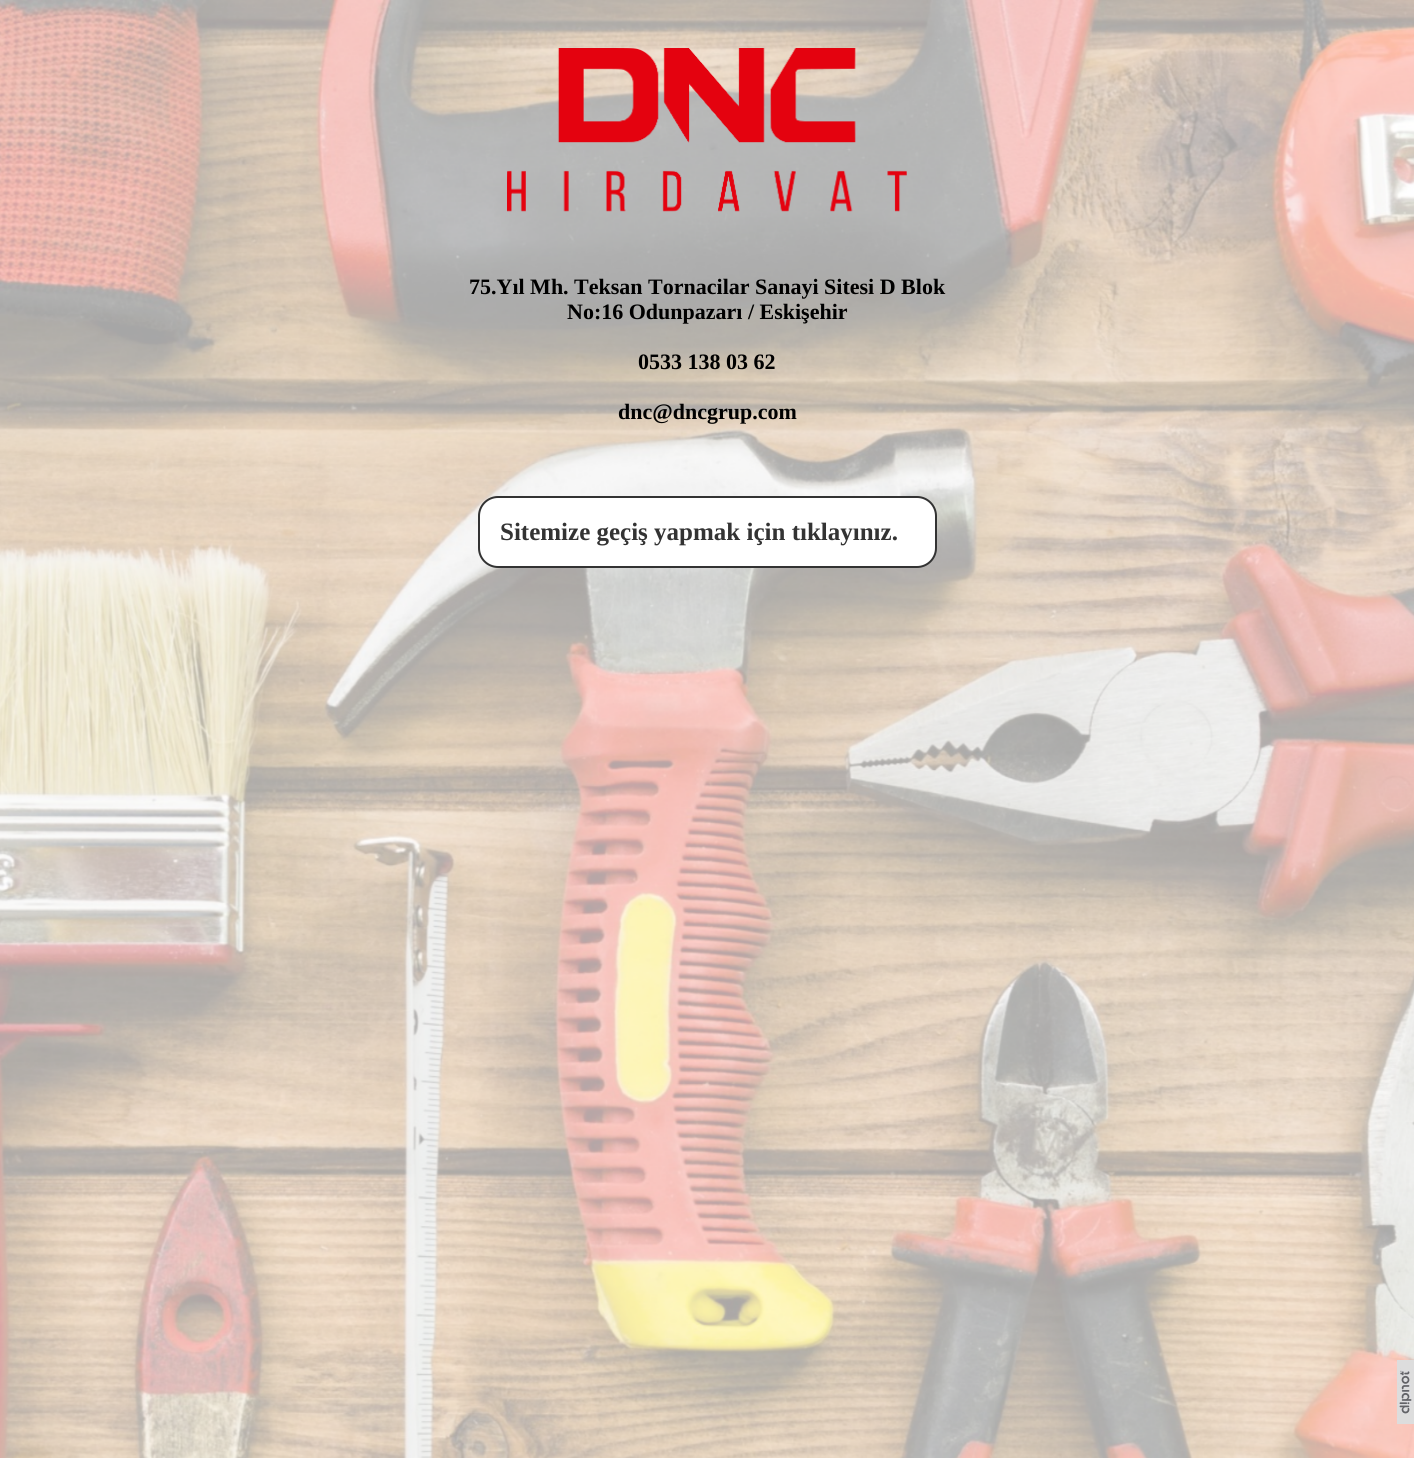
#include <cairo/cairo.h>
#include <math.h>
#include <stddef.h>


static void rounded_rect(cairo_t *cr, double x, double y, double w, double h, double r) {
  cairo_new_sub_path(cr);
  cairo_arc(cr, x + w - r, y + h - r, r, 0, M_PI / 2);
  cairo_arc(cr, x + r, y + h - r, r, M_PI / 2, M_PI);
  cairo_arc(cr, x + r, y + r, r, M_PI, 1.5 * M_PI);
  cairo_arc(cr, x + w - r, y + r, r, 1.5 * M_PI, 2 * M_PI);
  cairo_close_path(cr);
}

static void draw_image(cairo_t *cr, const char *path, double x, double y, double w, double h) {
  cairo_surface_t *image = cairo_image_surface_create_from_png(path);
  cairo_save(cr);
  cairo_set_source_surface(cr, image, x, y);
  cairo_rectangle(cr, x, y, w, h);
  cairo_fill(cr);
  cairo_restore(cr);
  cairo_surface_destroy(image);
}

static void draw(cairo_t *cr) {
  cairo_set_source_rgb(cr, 1, 1, 1);
  cairo_paint(cr);
  draw_image(cr, "images/1.png", 0, 0, 1414, 1458);
  draw_image(cr, "images/2.png", 507, 48, 400, 164);
  cairo_set_source_rgb(cr, 1, 1, 1);
  rounded_rect(cr, 479, 497, 457, 70, 19);
  cairo_fill_preserve(cr);
  cairo_set_source_rgb(cr, 51 / 255.0, 51 / 255.0, 51 / 255.0);
  cairo_stroke(cr);
  draw_image(cr, "images/3.png", 1397, 1360, 17, 64);
  cairo_select_font_face(cr, "Liberation Serif", CAIRO_FONT_SLANT_NORMAL, CAIRO_FONT_WEIGHT_BOLD);
  cairo_set_font_size(cr, 22);
  cairo_set_source_rgb(cr, 0, 0, 0);
  cairo_move_to(cr, 469, 294);
  cairo_show_text(cr, "75.Yıl Mh. Teksan Tornacilar Sanayi Sitesi D Blok");
  cairo_move_to(cr, 567, 319);
  cairo_show_text(cr, "No:16 Odunpazarı / Eskişehir");
  cairo_move_to(cr, 638, 369);
  cairo_show_text(cr, "0533 138 03 62");
  cairo_move_to(cr, 618, 419);
  cairo_show_text(cr, "dnc@dncgrup.com");
  cairo_set_font_size(cr, 25);
  cairo_set_source_rgb(cr, 51 / 255.0, 51 / 255.0, 51 / 255.0);
  cairo_move_to(cr, 500, 540);
  cairo_show_text(cr, "Sitemize geçiş yapmak için tıklayınız.");
}

int main(void) {
  cairo_surface_t *surface = cairo_image_surface_create(CAIRO_FORMAT_RGB24, 1414, 1458);
  cairo_t *cr = cairo_create(surface);
  cairo_font_options_t *options = cairo_font_options_create();
  cairo_font_options_set_hint_metrics(options, CAIRO_HINT_METRICS_OFF);
  cairo_font_options_set_hint_style(options, CAIRO_HINT_STYLE_NONE);
  cairo_set_font_options(cr, options);
  cairo_set_miter_limit(cr, 4);
  draw(cr);
  cairo_surface_write_to_png(surface, "out.png");
  cairo_font_options_destroy(options);
  cairo_destroy(cr);
  cairo_surface_destroy(surface);
  return 0;
}
